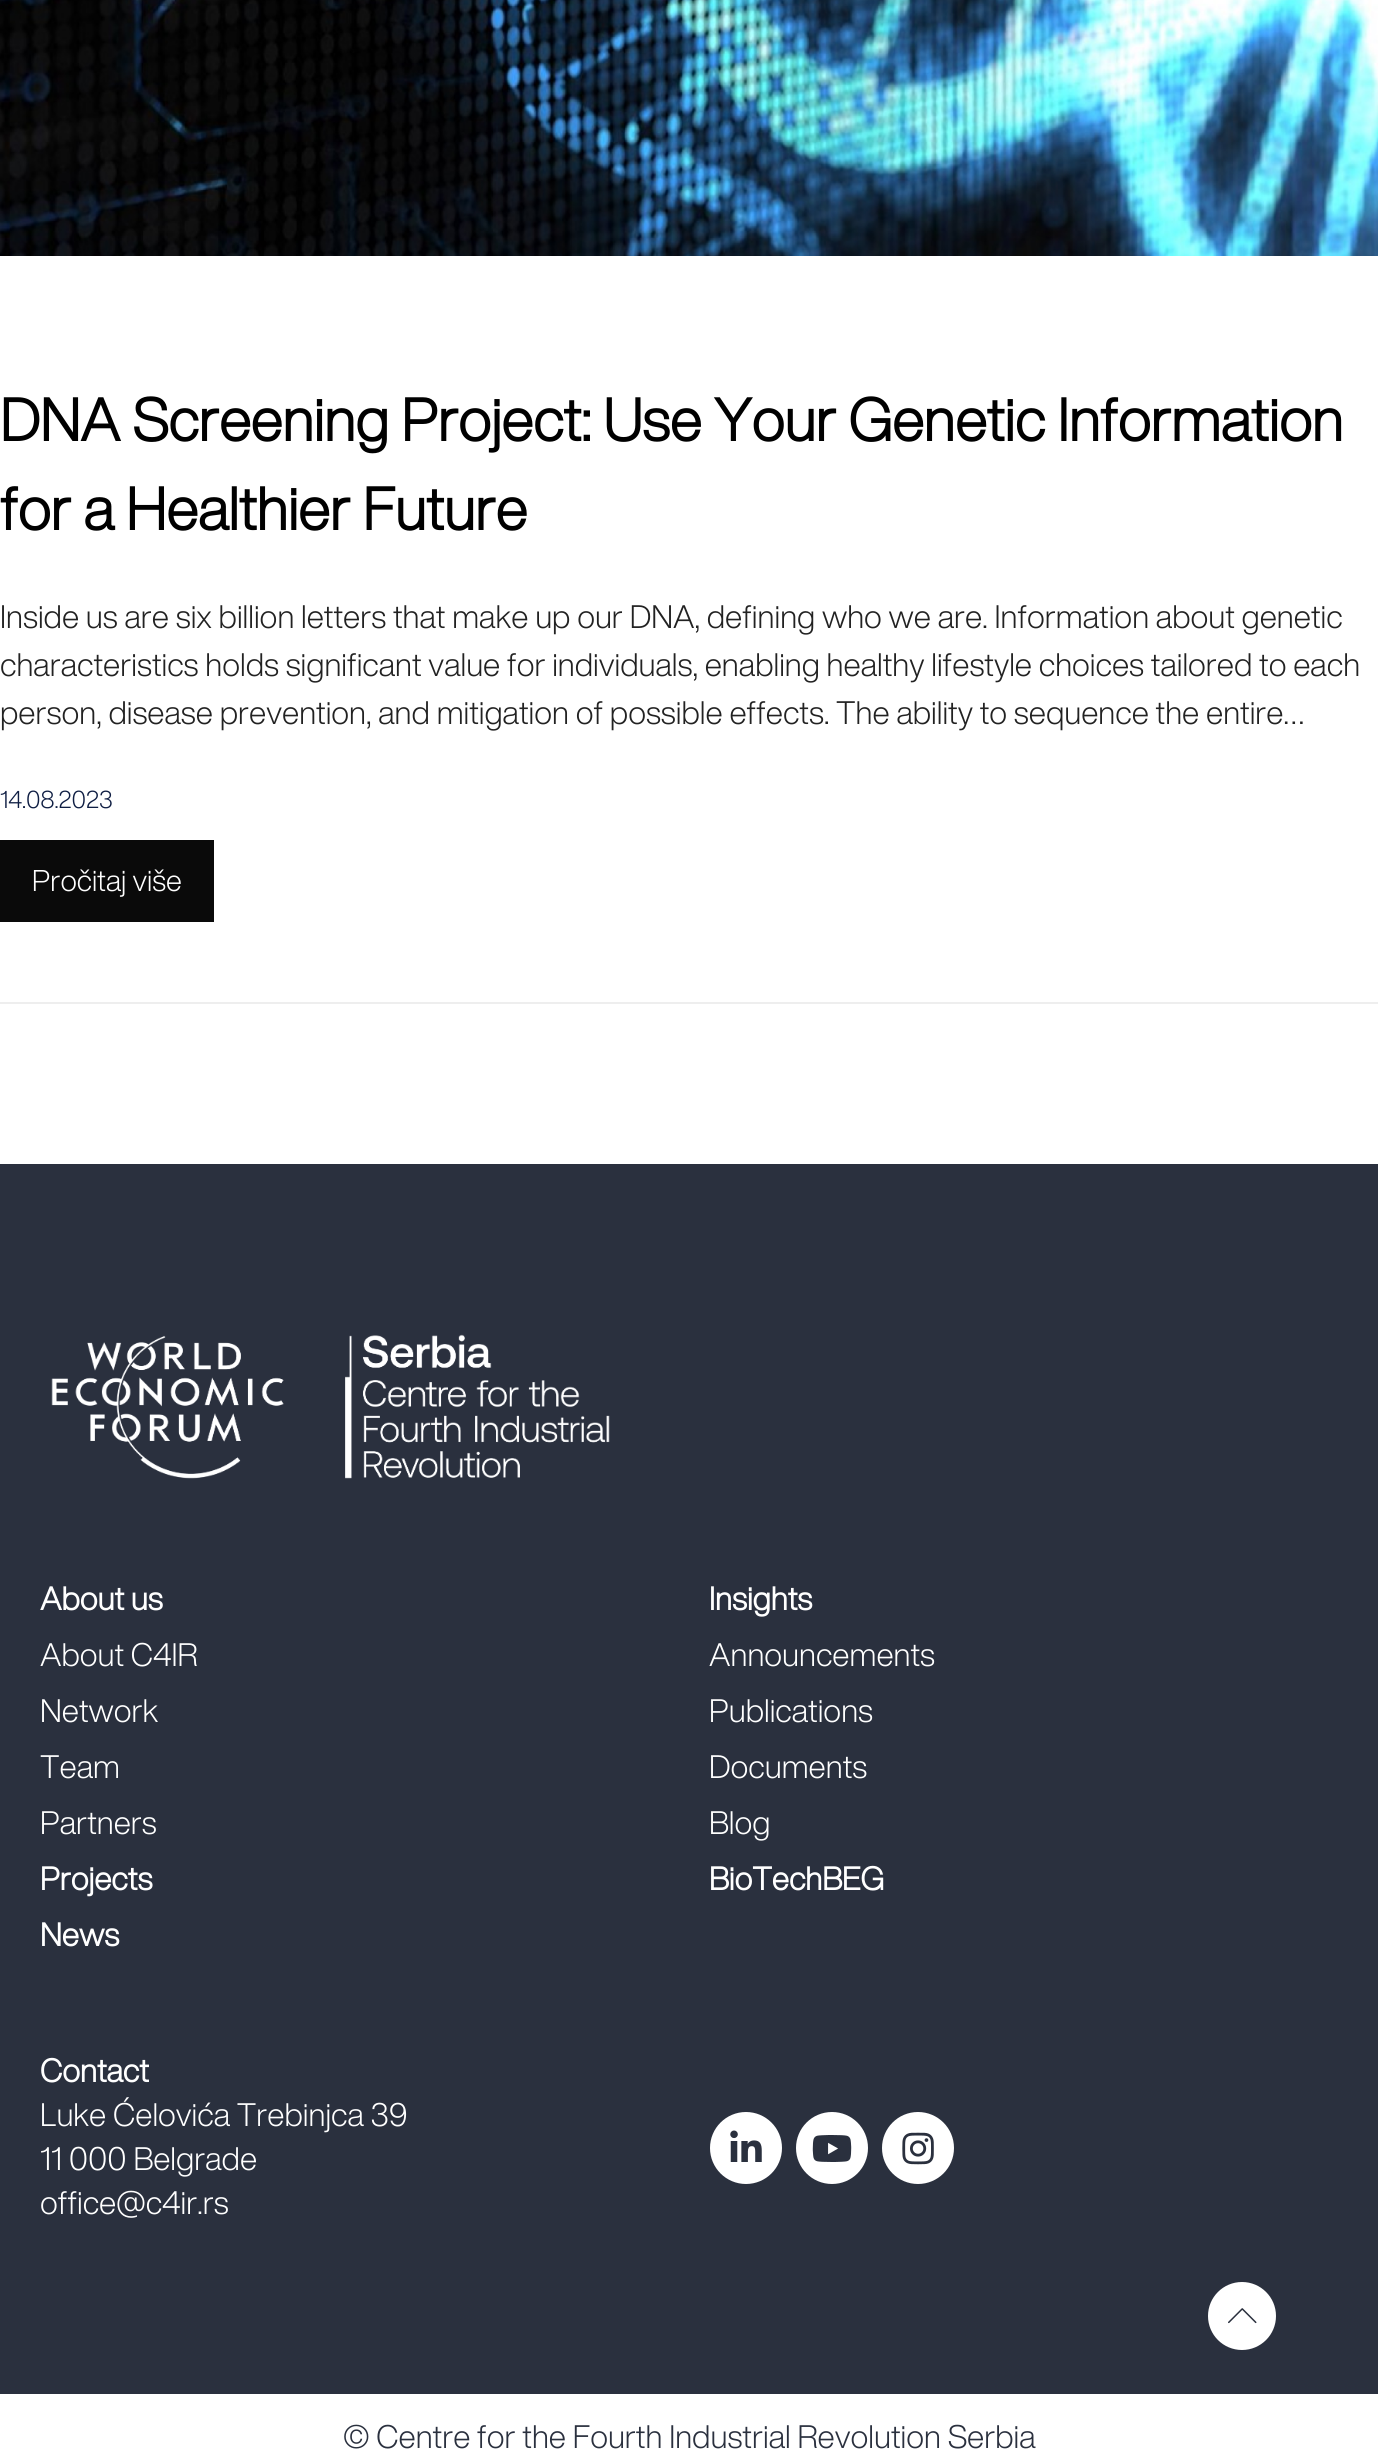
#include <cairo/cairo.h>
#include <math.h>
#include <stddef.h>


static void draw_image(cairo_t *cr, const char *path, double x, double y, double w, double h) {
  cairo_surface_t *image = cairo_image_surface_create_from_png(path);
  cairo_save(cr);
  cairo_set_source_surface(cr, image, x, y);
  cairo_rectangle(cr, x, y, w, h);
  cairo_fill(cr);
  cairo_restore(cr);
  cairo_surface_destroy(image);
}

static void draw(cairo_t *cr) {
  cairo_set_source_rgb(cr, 1, 1, 1);
  cairo_paint(cr);
  cairo_set_source_rgb(cr, 238 / 255.0, 238 / 255.0, 238 / 255.0);
  cairo_rectangle(cr, 0, 1002, 1378, 2);
  cairo_fill(cr);
  draw_image(cr, "images/1.png", 0, 0, 1378, 256);
  cairo_set_source_rgb(cr, 10 / 255.0, 10 / 255.0, 10 / 255.0);
  cairo_rectangle(cr, 0, 840, 214, 82);
  cairo_fill(cr);
  cairo_set_source_rgb(cr, 42 / 255.0, 48 / 255.0, 62 / 255.0);
  cairo_rectangle(cr, 0, 1164, 1378, 1230);
  cairo_fill(cr);
  draw_image(cr, "images/2.png", 51, 1334, 559, 145);
  cairo_set_source_rgb(cr, 1, 1, 1);
  cairo_arc(cr, 746, 2148, 36, 0, 2 * M_PI);
  cairo_fill(cr);
  draw_image(cr, "images/3.png", 730, 2130, 32, 32);
  cairo_arc(cr, 832, 2148, 36, 0, 2 * M_PI);
  cairo_fill(cr);
  draw_image(cr, "images/4.png", 812, 2135, 40, 27);
  cairo_arc(cr, 918, 2148, 36, 0, 2 * M_PI);
  cairo_fill(cr);
  draw_image(cr, "images/5.png", 902, 2132, 32, 33);
  cairo_arc(cr, 1242, 2316, 35, 0, 2 * M_PI);
  cairo_fill_preserve(cr);
  cairo_set_source_rgb(cr, 42 / 255.0, 48 / 255.0, 62 / 255.0);
  cairo_stroke(cr);
  draw_image(cr, "images/6.png", 1228, 2308, 29, 16);
  cairo_select_font_face(cr, "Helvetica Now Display", CAIRO_FONT_SLANT_NORMAL, CAIRO_FONT_WEIGHT_BOLD);
  cairo_set_font_size(cr, 59.1);
  cairo_set_source_rgb(cr, 0, 0, 0);
  cairo_move_to(cr, 0, 441);
  cairo_show_text(cr, "DNA Screening Project: Use Your Genetic Information");
  cairo_move_to(cr, 0, 530);
  cairo_show_text(cr, "for a Healthier Future");
  cairo_select_font_face(cr, "Helvetica Now Display Light", CAIRO_FONT_SLANT_NORMAL, CAIRO_FONT_WEIGHT_NORMAL);
  cairo_set_font_size(cr, 32);
  cairo_set_source_rgb(cr, 34 / 255.0, 34 / 255.0, 34 / 255.0);
  cairo_move_to(cr, 0, 628);
  cairo_show_text(cr, "Inside us are six billion letters that make up our DNA, defining who we are. Information about genetic");
  cairo_move_to(cr, 0, 676);
  cairo_show_text(cr, "characteristics holds significant value for individuals, enabling healthy lifestyle choices tailored to each");
  cairo_move_to(cr, 0, 724);
  cairo_show_text(cr, "person, disease prevention, and mitigation of possible effects. The ability to sequence the entire…");
  cairo_set_font_size(cr, 24);
  cairo_set_source_rgb(cr, 15 / 255.0, 30 / 255.0, 67 / 255.0);
  cairo_move_to(cr, 0, 808);
  cairo_show_text(cr, "14.08.2023");
  cairo_set_font_size(cr, 29.5);
  cairo_set_source_rgb(cr, 1, 1, 1);
  cairo_move_to(cr, 32, 891);
  cairo_show_text(cr, "Pročitaj više");
  cairo_select_font_face(cr, "Helvetica Now Display", CAIRO_FONT_SLANT_NORMAL, CAIRO_FONT_WEIGHT_BOLD);
  cairo_set_font_size(cr, 32);
  cairo_move_to(cr, 40, 1610);
  cairo_show_text(cr, "About us");
  cairo_select_font_face(cr, "Helvetica Now Display Light", CAIRO_FONT_SLANT_NORMAL, CAIRO_FONT_WEIGHT_NORMAL);
  cairo_move_to(cr, 40, 1666);
  cairo_show_text(cr, "About C4IR");
  cairo_move_to(cr, 40, 1722);
  cairo_show_text(cr, "Network");
  cairo_move_to(cr, 40, 1778);
  cairo_show_text(cr, "Team");
  cairo_move_to(cr, 40, 1834);
  cairo_show_text(cr, "Partners");
  cairo_select_font_face(cr, "Helvetica Now Display", CAIRO_FONT_SLANT_NORMAL, CAIRO_FONT_WEIGHT_BOLD);
  cairo_move_to(cr, 40, 1890);
  cairo_show_text(cr, "Projects");
  cairo_move_to(cr, 40, 1946);
  cairo_show_text(cr, "News");
  cairo_move_to(cr, 709, 1610);
  cairo_show_text(cr, "Insights");
  cairo_select_font_face(cr, "Helvetica Now Display Light", CAIRO_FONT_SLANT_NORMAL, CAIRO_FONT_WEIGHT_NORMAL);
  cairo_move_to(cr, 709, 1666);
  cairo_show_text(cr, "Announcements");
  cairo_move_to(cr, 709, 1722);
  cairo_show_text(cr, "Publications");
  cairo_move_to(cr, 709, 1778);
  cairo_show_text(cr, "Documents");
  cairo_move_to(cr, 709, 1834);
  cairo_show_text(cr, "Blog");
  cairo_select_font_face(cr, "Helvetica Now Display", CAIRO_FONT_SLANT_NORMAL, CAIRO_FONT_WEIGHT_BOLD);
  cairo_move_to(cr, 709, 1890);
  cairo_show_text(cr, "BioTechBEG");
  cairo_move_to(cr, 40, 2082);
  cairo_show_text(cr, "Contact");
  cairo_select_font_face(cr, "Helvetica Now Display Light", CAIRO_FONT_SLANT_NORMAL, CAIRO_FONT_WEIGHT_NORMAL);
  cairo_move_to(cr, 40, 2126);
  cairo_show_text(cr, "Luke Ćelovića Trebinjca 39");
  cairo_move_to(cr, 40, 2170);
  cairo_show_text(cr, "11 000 Belgrade");
  cairo_move_to(cr, 40, 2214);
  cairo_show_text(cr, "office@c4ir.rs");
  cairo_set_source_rgb(cr, 42 / 255.0, 48 / 255.0, 62 / 255.0);
  cairo_move_to(cr, 343, 2448);
  cairo_show_text(cr, "© Centre for the Fourth Industrial Revolution Serbia");
}

int main(void) {
  cairo_surface_t *surface = cairo_image_surface_create(CAIRO_FORMAT_RGB24, 1378, 2452);
  cairo_t *cr = cairo_create(surface);
  cairo_font_options_t *options = cairo_font_options_create();
  cairo_font_options_set_hint_metrics(options, CAIRO_HINT_METRICS_OFF);
  cairo_font_options_set_hint_style(options, CAIRO_HINT_STYLE_NONE);
  cairo_set_font_options(cr, options);
  cairo_set_miter_limit(cr, 4);
  draw(cr);
  cairo_surface_write_to_png(surface, "out.png");
  cairo_font_options_destroy(options);
  cairo_destroy(cr);
  cairo_surface_destroy(surface);
  return 0;
}
